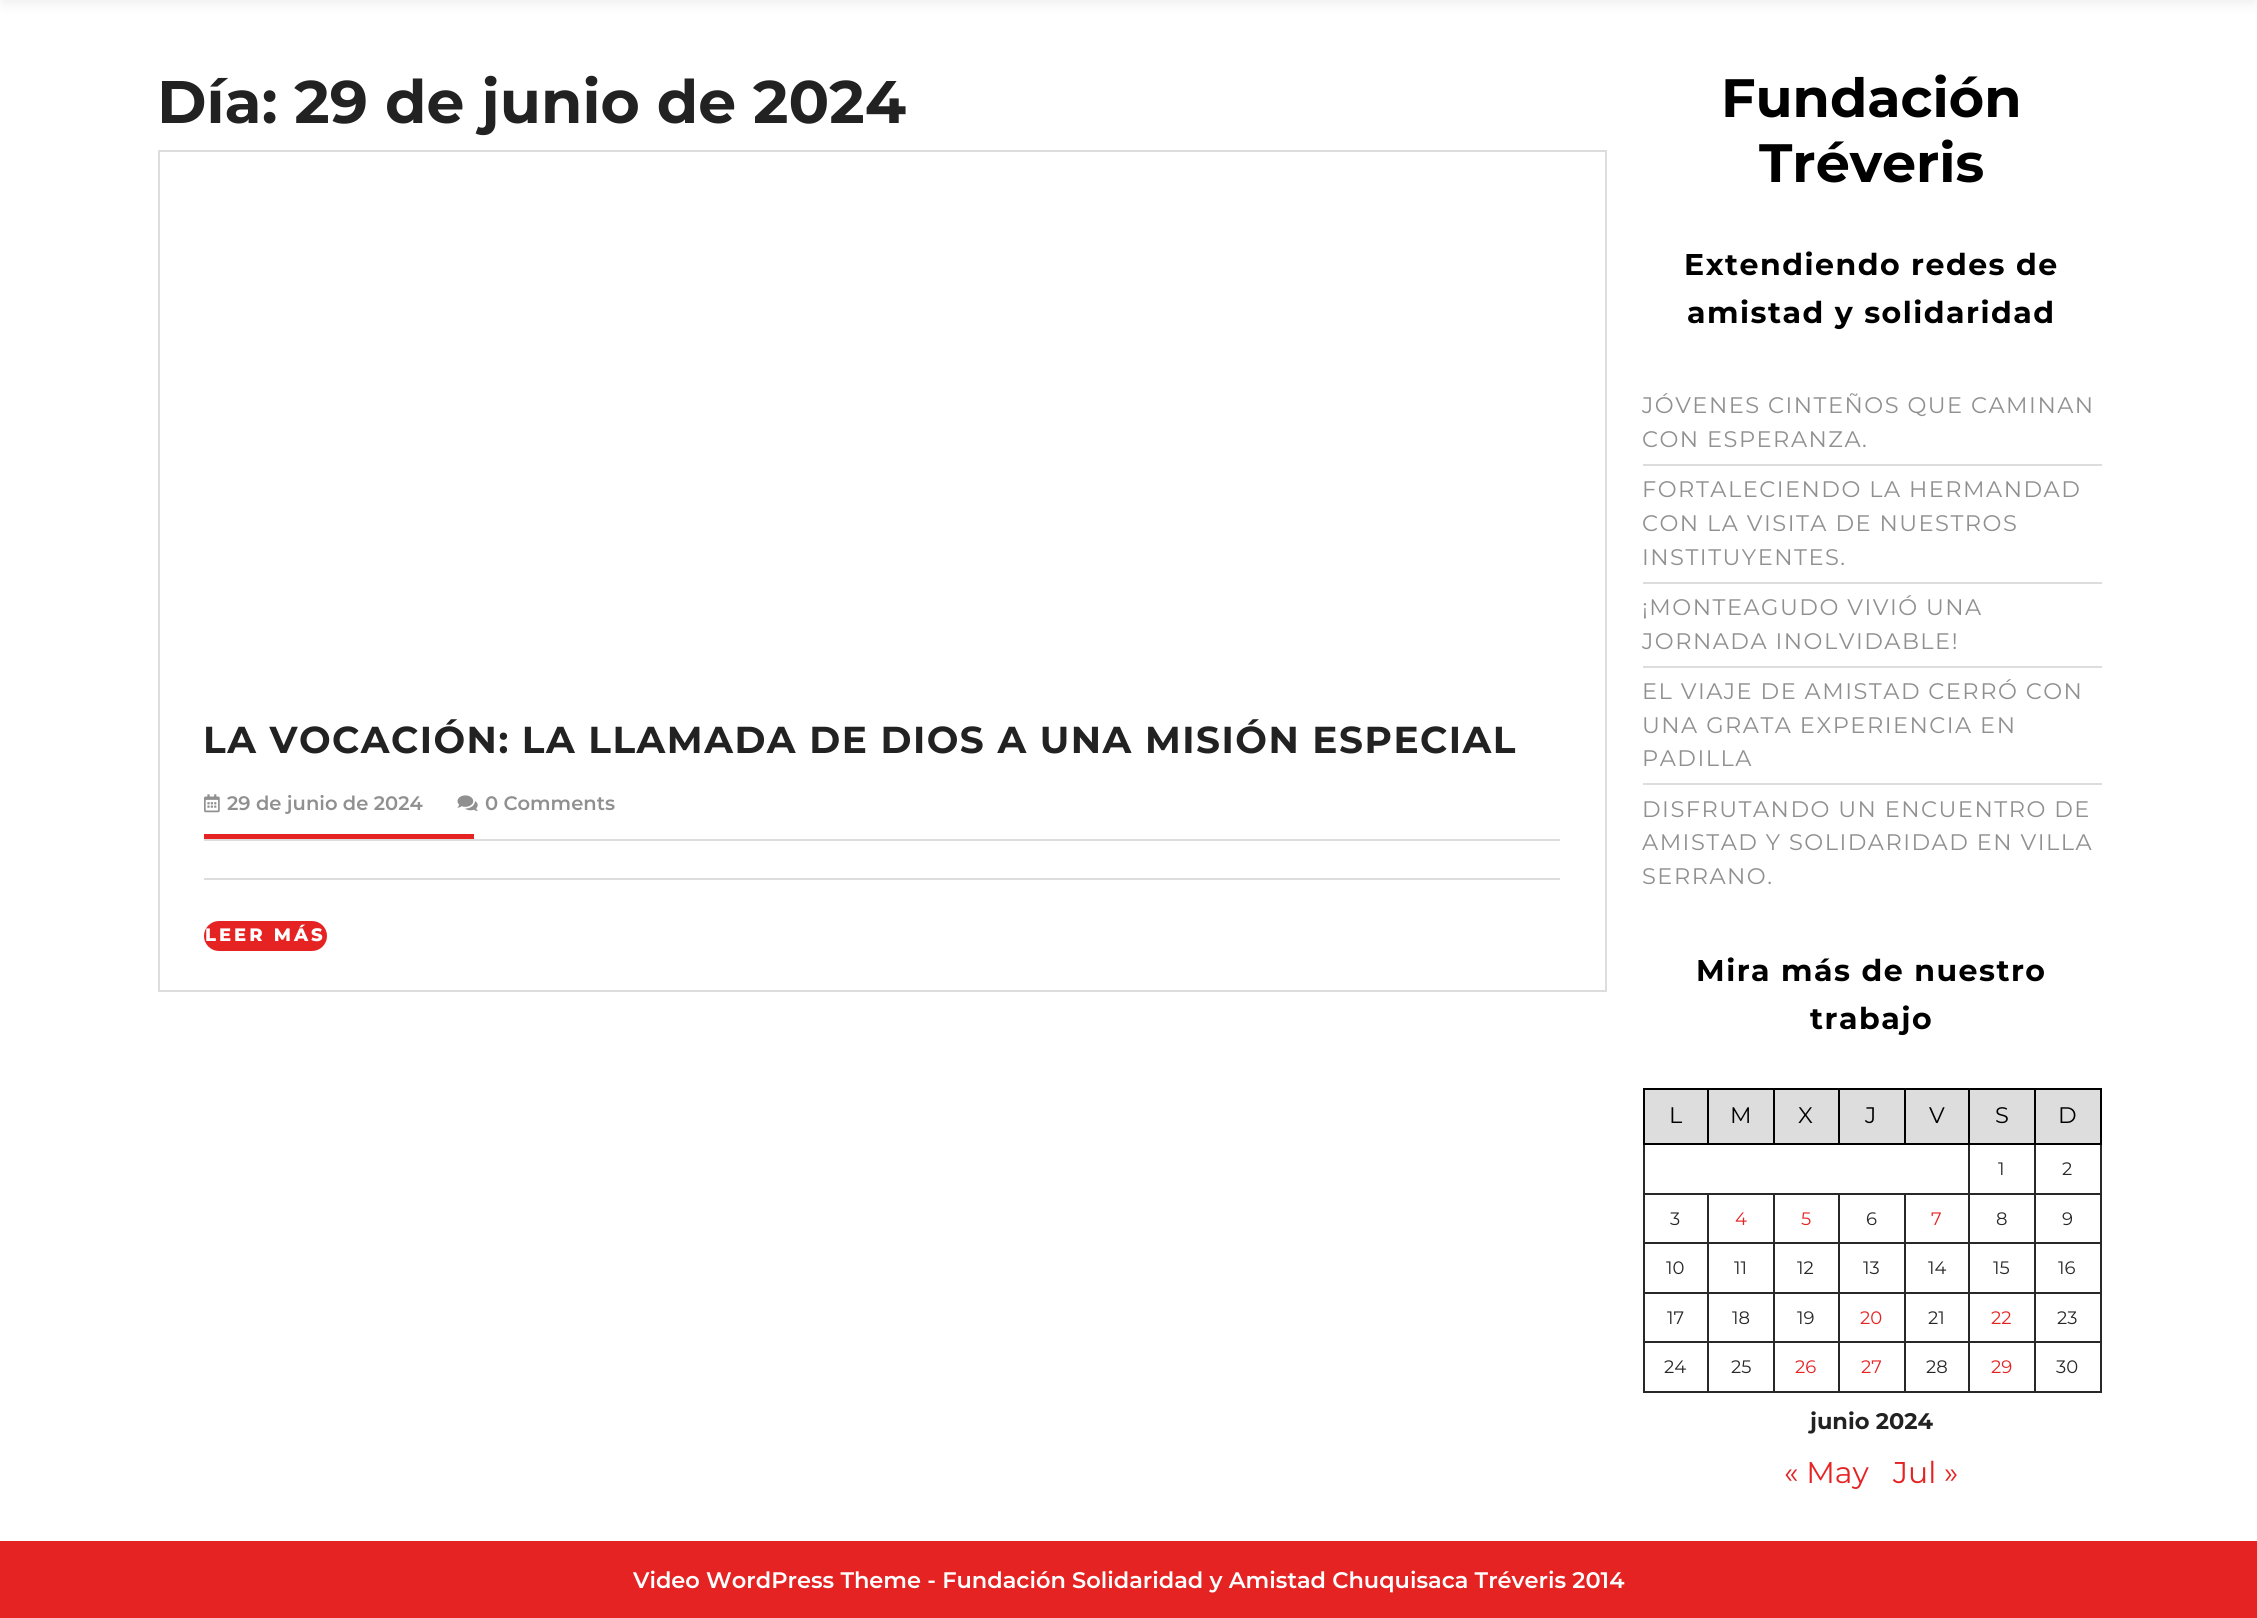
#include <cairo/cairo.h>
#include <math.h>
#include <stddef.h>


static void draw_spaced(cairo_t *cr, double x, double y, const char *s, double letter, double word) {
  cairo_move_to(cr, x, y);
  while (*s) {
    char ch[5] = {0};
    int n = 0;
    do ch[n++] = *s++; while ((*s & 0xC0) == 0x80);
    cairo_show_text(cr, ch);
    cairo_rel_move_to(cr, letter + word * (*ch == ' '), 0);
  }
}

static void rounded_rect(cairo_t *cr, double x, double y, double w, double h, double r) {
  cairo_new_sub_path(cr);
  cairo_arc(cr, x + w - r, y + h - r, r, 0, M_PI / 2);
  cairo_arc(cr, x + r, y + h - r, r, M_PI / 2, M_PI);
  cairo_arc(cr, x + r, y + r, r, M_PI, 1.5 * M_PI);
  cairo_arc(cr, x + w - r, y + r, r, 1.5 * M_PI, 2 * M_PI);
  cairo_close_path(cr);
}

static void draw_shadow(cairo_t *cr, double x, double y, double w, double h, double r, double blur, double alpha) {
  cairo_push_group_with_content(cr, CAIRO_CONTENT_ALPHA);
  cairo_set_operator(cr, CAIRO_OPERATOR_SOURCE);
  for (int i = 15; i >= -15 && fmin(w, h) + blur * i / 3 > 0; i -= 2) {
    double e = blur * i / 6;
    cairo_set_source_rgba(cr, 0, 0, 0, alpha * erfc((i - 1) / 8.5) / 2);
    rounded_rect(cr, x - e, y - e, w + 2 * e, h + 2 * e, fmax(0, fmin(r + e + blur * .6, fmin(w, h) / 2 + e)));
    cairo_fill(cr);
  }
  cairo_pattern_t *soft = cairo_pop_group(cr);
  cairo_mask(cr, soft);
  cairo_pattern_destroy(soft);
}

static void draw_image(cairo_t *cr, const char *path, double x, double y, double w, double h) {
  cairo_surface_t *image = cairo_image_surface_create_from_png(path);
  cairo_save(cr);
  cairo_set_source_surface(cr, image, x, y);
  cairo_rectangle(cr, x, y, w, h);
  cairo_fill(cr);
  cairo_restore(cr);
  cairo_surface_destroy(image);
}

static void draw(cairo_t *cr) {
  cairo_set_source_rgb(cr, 1, 1, 1);
  cairo_paint(cr);
  cairo_set_source_rgb(cr, 238 / 255.0, 238 / 255.0, 238 / 255.0);
  draw_shadow(cr, 3, -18, 2252, 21, 0, 6, 1);
  cairo_rectangle(cr, 159, 151, 1447, 840);
  cairo_set_source_rgb(cr, 221 / 255.0, 221 / 255.0, 221 / 255.0);
  cairo_stroke(cr);
  draw_image(cr, "images/1.png", 204, 794, 16, 19);
  draw_image(cr, "images/2.png", 457, 795, 21, 17);
  cairo_set_source_rgb(cr, 230 / 255.0, 35 / 255.0, 35 / 255.0);
  cairo_rectangle(cr, 204, 834, 270, 5);
  cairo_fill(cr);
  cairo_set_source_rgb(cr, 221 / 255.0, 221 / 255.0, 221 / 255.0);
  cairo_rectangle(cr, 204, 839, 1356, 2);
  cairo_fill(cr);
  cairo_rectangle(cr, 204, 878, 1356, 2);
  cairo_fill(cr);
  cairo_set_source_rgb(cr, 230 / 255.0, 35 / 255.0, 35 / 255.0);
  rounded_rect(cr, 205, 922, 121, 28, 14);
  cairo_fill_preserve(cr);
  cairo_stroke(cr);
  cairo_set_source_rgb(cr, 221 / 255.0, 221 / 255.0, 221 / 255.0);
  cairo_rectangle(cr, 1643, 464, 459, 2);
  cairo_fill(cr);
  cairo_rectangle(cr, 1643, 582, 459, 2);
  cairo_fill(cr);
  cairo_rectangle(cr, 1643, 666, 459, 2);
  cairo_fill(cr);
  cairo_rectangle(cr, 1643, 783, 459, 2);
  cairo_fill(cr);
  cairo_rectangle(cr, 1645, 1090, 62, 53);
  cairo_fill(cr);
  cairo_set_source_rgb(cr, 0, 0, 0);
  cairo_rectangle(cr, 2034, 1088, 68, 2);
  cairo_fill(cr);
  cairo_set_source_rgb(cr, 40 / 255.0, 40 / 255.0, 40 / 255.0);
  cairo_rectangle(cr, 2034, 1193, 68, 2);
  cairo_fill(cr);
  cairo_rectangle(cr, 2034, 1242, 68, 2);
  cairo_fill(cr);
  cairo_rectangle(cr, 2034, 1292, 68, 2);
  cairo_fill(cr);
  cairo_rectangle(cr, 2034, 1341, 68, 2);
  cairo_fill(cr);
  cairo_rectangle(cr, 2100, 1341, 2, 51);
  cairo_fill(cr);
  cairo_rectangle(cr, 2100, 1292, 2, 51);
  cairo_fill(cr);
  cairo_rectangle(cr, 2100, 1242, 2, 51);
  cairo_fill(cr);
  cairo_rectangle(cr, 2100, 1143, 2, 101);
  cairo_fill(cr);
  cairo_set_source_rgb(cr, 0, 0, 0);
  cairo_rectangle(cr, 2100, 1088, 2, 57);
  cairo_fill(cr);
  cairo_set_source_rgb(cr, 40 / 255.0, 40 / 255.0, 40 / 255.0);
  cairo_rectangle(cr, 2034, 1391, 68, 2);
  cairo_fill(cr);
  cairo_rectangle(cr, 2034, 1341, 2, 51);
  cairo_fill(cr);
  cairo_rectangle(cr, 1968, 1341, 68, 2);
  cairo_fill(cr);
  cairo_rectangle(cr, 2034, 1292, 2, 51);
  cairo_fill(cr);
  cairo_rectangle(cr, 1968, 1292, 68, 2);
  cairo_fill(cr);
  cairo_rectangle(cr, 2034, 1242, 2, 51);
  cairo_fill(cr);
  cairo_rectangle(cr, 1968, 1242, 68, 2);
  cairo_fill(cr);
  cairo_rectangle(cr, 2034, 1193, 2, 51);
  cairo_fill(cr);
  cairo_rectangle(cr, 1968, 1193, 68, 2);
  cairo_fill(cr);
  cairo_rectangle(cr, 2034, 1143, 2, 51);
  cairo_fill(cr);
  cairo_set_source_rgb(cr, 0, 0, 0);
  cairo_rectangle(cr, 2034, 1143, 68, 2);
  cairo_fill(cr);
  cairo_rectangle(cr, 2034, 1088, 2, 57);
  cairo_fill(cr);
  cairo_rectangle(cr, 1968, 1088, 68, 2);
  cairo_fill(cr);
  cairo_set_source_rgb(cr, 40 / 255.0, 40 / 255.0, 40 / 255.0);
  cairo_rectangle(cr, 1968, 1391, 68, 2);
  cairo_fill(cr);
  cairo_rectangle(cr, 1968, 1341, 2, 51);
  cairo_fill(cr);
  cairo_rectangle(cr, 1904, 1341, 66, 2);
  cairo_fill(cr);
  cairo_rectangle(cr, 1968, 1292, 2, 51);
  cairo_fill(cr);
  cairo_rectangle(cr, 1904, 1292, 66, 2);
  cairo_fill(cr);
  cairo_rectangle(cr, 1968, 1242, 2, 51);
  cairo_fill(cr);
  cairo_rectangle(cr, 1904, 1242, 66, 2);
  cairo_fill(cr);
  cairo_rectangle(cr, 1968, 1193, 2, 51);
  cairo_fill(cr);
  cairo_rectangle(cr, 1904, 1193, 66, 2);
  cairo_fill(cr);
  cairo_rectangle(cr, 1968, 1143, 2, 51);
  cairo_fill(cr);
  cairo_set_source_rgb(cr, 0, 0, 0);
  cairo_rectangle(cr, 1968, 1143, 68, 2);
  cairo_fill(cr);
  cairo_rectangle(cr, 1968, 1088, 2, 57);
  cairo_fill(cr);
  cairo_rectangle(cr, 1904, 1088, 66, 2);
  cairo_fill(cr);
  cairo_rectangle(cr, 1904, 1143, 66, 2);
  cairo_fill(cr);
  cairo_rectangle(cr, 1904, 1088, 2, 57);
  cairo_fill(cr);
  cairo_rectangle(cr, 1838, 1088, 67, 2);
  cairo_fill(cr);
  cairo_rectangle(cr, 1838, 1143, 67, 2);
  cairo_fill(cr);
  cairo_rectangle(cr, 1838, 1088, 2, 57);
  cairo_fill(cr);
  cairo_rectangle(cr, 1773, 1088, 66, 2);
  cairo_fill(cr);
  cairo_rectangle(cr, 1773, 1143, 66, 2);
  cairo_fill(cr);
  cairo_rectangle(cr, 1773, 1088, 2, 57);
  cairo_fill(cr);
  cairo_rectangle(cr, 1707, 1088, 68, 2);
  cairo_fill(cr);
  cairo_rectangle(cr, 1707, 1143, 68, 2);
  cairo_fill(cr);
  cairo_rectangle(cr, 1707, 1088, 2, 57);
  cairo_fill(cr);
  cairo_rectangle(cr, 1643, 1088, 66, 2);
  cairo_fill(cr);
  cairo_set_source_rgb(cr, 40 / 255.0, 40 / 255.0, 40 / 255.0);
  cairo_rectangle(cr, 1904, 1391, 66, 2);
  cairo_fill(cr);
  cairo_rectangle(cr, 1904, 1341, 2, 51);
  cairo_fill(cr);
  cairo_rectangle(cr, 1838, 1341, 67, 2);
  cairo_fill(cr);
  cairo_rectangle(cr, 1904, 1292, 2, 51);
  cairo_fill(cr);
  cairo_rectangle(cr, 1838, 1292, 67, 2);
  cairo_fill(cr);
  cairo_rectangle(cr, 1904, 1242, 2, 51);
  cairo_fill(cr);
  cairo_rectangle(cr, 1838, 1242, 67, 2);
  cairo_fill(cr);
  cairo_rectangle(cr, 1904, 1193, 2, 51);
  cairo_fill(cr);
  cairo_rectangle(cr, 1838, 1193, 67, 2);
  cairo_fill(cr);
  cairo_rectangle(cr, 1838, 1391, 67, 2);
  cairo_fill(cr);
  cairo_rectangle(cr, 1838, 1341, 2, 51);
  cairo_fill(cr);
  cairo_rectangle(cr, 1773, 1341, 66, 2);
  cairo_fill(cr);
  cairo_rectangle(cr, 1838, 1292, 2, 51);
  cairo_fill(cr);
  cairo_rectangle(cr, 1773, 1292, 66, 2);
  cairo_fill(cr);
  cairo_rectangle(cr, 1838, 1242, 2, 51);
  cairo_fill(cr);
  cairo_rectangle(cr, 1773, 1242, 66, 2);
  cairo_fill(cr);
  cairo_rectangle(cr, 1838, 1193, 2, 51);
  cairo_fill(cr);
  cairo_rectangle(cr, 1773, 1193, 66, 2);
  cairo_fill(cr);
  cairo_rectangle(cr, 1773, 1391, 66, 2);
  cairo_fill(cr);
  cairo_rectangle(cr, 1773, 1341, 2, 51);
  cairo_fill(cr);
  cairo_rectangle(cr, 1707, 1341, 68, 2);
  cairo_fill(cr);
  cairo_rectangle(cr, 1773, 1292, 2, 51);
  cairo_fill(cr);
  cairo_rectangle(cr, 1707, 1292, 68, 2);
  cairo_fill(cr);
  cairo_rectangle(cr, 1773, 1242, 2, 51);
  cairo_fill(cr);
  cairo_rectangle(cr, 1707, 1242, 68, 2);
  cairo_fill(cr);
  cairo_rectangle(cr, 1773, 1193, 2, 51);
  cairo_fill(cr);
  cairo_rectangle(cr, 1707, 1193, 68, 2);
  cairo_fill(cr);
  cairo_rectangle(cr, 1707, 1391, 68, 2);
  cairo_fill(cr);
  cairo_rectangle(cr, 1707, 1341, 2, 51);
  cairo_fill(cr);
  cairo_rectangle(cr, 1643, 1341, 66, 2);
  cairo_fill(cr);
  cairo_rectangle(cr, 1707, 1292, 2, 51);
  cairo_fill(cr);
  cairo_rectangle(cr, 1643, 1292, 66, 2);
  cairo_fill(cr);
  cairo_rectangle(cr, 1707, 1242, 2, 51);
  cairo_fill(cr);
  cairo_rectangle(cr, 1643, 1242, 66, 2);
  cairo_fill(cr);
  cairo_rectangle(cr, 1707, 1193, 2, 51);
  cairo_fill(cr);
  cairo_rectangle(cr, 1643, 1193, 66, 2);
  cairo_fill(cr);
  cairo_rectangle(cr, 1643, 1391, 66, 2);
  cairo_fill(cr);
  cairo_rectangle(cr, 1643, 1341, 2, 51);
  cairo_fill(cr);
  cairo_rectangle(cr, 1643, 1292, 2, 51);
  cairo_fill(cr);
  cairo_rectangle(cr, 1643, 1242, 2, 51);
  cairo_fill(cr);
  cairo_rectangle(cr, 1643, 1143, 2, 101);
  cairo_fill(cr);
  cairo_set_source_rgb(cr, 0, 0, 0);
  cairo_rectangle(cr, 1643, 1143, 66, 2);
  cairo_fill(cr);
  cairo_rectangle(cr, 1643, 1088, 2, 57);
  cairo_fill(cr);
  cairo_set_source_rgb(cr, 221 / 255.0, 221 / 255.0, 221 / 255.0);
  cairo_rectangle(cr, 1709, 1090, 64, 53);
  cairo_fill(cr);
  cairo_rectangle(cr, 1775, 1090, 63, 53);
  cairo_fill(cr);
  cairo_rectangle(cr, 1840, 1090, 64, 53);
  cairo_fill(cr);
  cairo_rectangle(cr, 1906, 1090, 62, 53);
  cairo_fill(cr);
  cairo_rectangle(cr, 1970, 1090, 64, 53);
  cairo_fill(cr);
  cairo_rectangle(cr, 2036, 1090, 64, 53);
  cairo_fill(cr);
  cairo_set_source_rgb(cr, 230 / 255.0, 35 / 255.0, 35 / 255.0);
  cairo_rectangle(cr, 0, 1541, 2257, 77);
  cairo_fill(cr);
  cairo_select_font_face(cr, "Montserrat", CAIRO_FONT_SLANT_NORMAL, CAIRO_FONT_WEIGHT_BOLD);
  cairo_set_font_size(cr, 60);
  cairo_set_source_rgb(cr, 34 / 255.0, 34 / 255.0, 34 / 255.0);
  cairo_move_to(cr, 157, 123);
  cairo_show_text(cr, "Día: 29 de junio de 2024");
  cairo_set_font_size(cr, 37.5);
  draw_spaced(cr, 203, 753, "LA VOCACIÓN: LA LLAMADA DE DIOS A UNA MISIÓN ESPECIAL", 1.5, 0);
  cairo_select_font_face(cr, "Montserrat SemiBold", CAIRO_FONT_SLANT_NORMAL, CAIRO_FONT_WEIGHT_NORMAL);
  cairo_set_font_size(cr, 19.5);
  cairo_set_source_rgb(cr, 144 / 255.0, 144 / 255.0, 144 / 255.0);
  cairo_move_to(cr, 227, 810);
  cairo_show_text(cr, "29 de junio de 2024");
  cairo_move_to(cr, 485, 810);
  cairo_show_text(cr, "0 Comments");
  cairo_select_font_face(cr, "Montserrat ExtraBold", CAIRO_FONT_SLANT_NORMAL, CAIRO_FONT_WEIGHT_NORMAL);
  cairo_set_font_size(cr, 18);
  cairo_set_source_rgb(cr, 1, 1, 1);
  draw_spaced(cr, 205, 941, "LEER MÁS", 3, 0);
  cairo_select_font_face(cr, "Montserrat", CAIRO_FONT_SLANT_NORMAL, CAIRO_FONT_WEIGHT_BOLD);
  cairo_set_font_size(cr, 54);
  cairo_set_source_rgb(cr, 0, 0, 0);
  cairo_move_to(cr, 1721, 117);
  cairo_show_text(cr, "Fundación");
  cairo_move_to(cr, 1759, 182);
  cairo_show_text(cr, "Tréveris");
  cairo_set_font_size(cr, 30);
  draw_spaced(cr, 1684, 275, "Extendiendo redes de", 1.5, 0);
  draw_spaced(cr, 1687, 323, "amistad y solidaridad", 1.5, 0);
  cairo_select_font_face(cr, "Montserrat", CAIRO_FONT_SLANT_NORMAL, CAIRO_FONT_WEIGHT_NORMAL);
  cairo_set_font_size(cr, 22.5);
  cairo_set_source_rgb(cr, 144 / 255.0, 144 / 255.0, 144 / 255.0);
  draw_spaced(cr, 1642, 413, "JÓVENES CINTEÑOS QUE CAMINAN", 1.5, 0);
  draw_spaced(cr, 1642, 447, "CON ESPERANZA.", 1.5, 0);
  draw_spaced(cr, 1642, 497, "FORTALECIENDO LA HERMANDAD", 1.5, 0);
  draw_spaced(cr, 1642, 531, "CON LA VISITA DE NUESTROS", 1.5, 0);
  draw_spaced(cr, 1642, 565, "INSTITUYENTES.", 1.5, 0);
  draw_spaced(cr, 1642, 615, "¡MONTEAGUDO VIVIÓ UNA", 1.5, 0);
  draw_spaced(cr, 1642, 649, "JORNADA INOLVIDABLE!", 1.5, 0);
  draw_spaced(cr, 1642, 699, "EL VIAJE DE AMISTAD CERRÓ CON", 1.5, 0);
  draw_spaced(cr, 1642, 733, "UNA GRATA EXPERIENCIA EN", 1.5, 0);
  draw_spaced(cr, 1642, 766, "PADILLA", 1.5, 0);
  draw_spaced(cr, 1642, 817, "DISFRUTANDO UN ENCUENTRO DE", 1.5, 0);
  draw_spaced(cr, 1642, 850, "AMISTAD Y SOLIDARIDAD EN VILLA", 1.5, 0);
  draw_spaced(cr, 1642, 884, "SERRANO.", 1.5, 0);
  cairo_select_font_face(cr, "Montserrat", CAIRO_FONT_SLANT_NORMAL, CAIRO_FONT_WEIGHT_BOLD);
  cairo_set_font_size(cr, 30);
  cairo_set_source_rgb(cr, 0, 0, 0);
  draw_spaced(cr, 1696, 981, "Mira más de nuestro", 1.5, 0);
  draw_spaced(cr, 1810, 1029, "trabajo", 1.5, 0);
  cairo_select_font_face(cr, "Montserrat", CAIRO_FONT_SLANT_NORMAL, CAIRO_FONT_WEIGHT_NORMAL);
  cairo_set_font_size(cr, 22.5);
  cairo_move_to(cr, 1669, 1123);
  cairo_show_text(cr, "L");
  cairo_move_to(cr, 1730, 1123);
  cairo_show_text(cr, "M");
  cairo_move_to(cr, 1798, 1123);
  cairo_show_text(cr, "X");
  cairo_move_to(cr, 1865, 1123);
  cairo_show_text(cr, "J");
  cairo_move_to(cr, 1929, 1123);
  cairo_show_text(cr, "V");
  cairo_move_to(cr, 1995, 1123);
  cairo_show_text(cr, "S");
  cairo_move_to(cr, 2058, 1123);
  cairo_show_text(cr, "D");
  cairo_set_font_size(cr, 18);
  cairo_set_source_rgb(cr, 40 / 255.0, 40 / 255.0, 40 / 255.0);
  cairo_move_to(cr, 1998, 1175);
  cairo_show_text(cr, "1");
  cairo_move_to(cr, 2062, 1175);
  cairo_show_text(cr, "2");
  cairo_move_to(cr, 1670, 1225);
  cairo_show_text(cr, "3");
  cairo_set_source_rgb(cr, 230 / 255.0, 35 / 255.0, 35 / 255.0);
  cairo_move_to(cr, 1735, 1225);
  cairo_show_text(cr, "4");
  cairo_move_to(cr, 1801, 1225);
  cairo_show_text(cr, "5");
  cairo_set_source_rgb(cr, 40 / 255.0, 40 / 255.0, 40 / 255.0);
  cairo_move_to(cr, 1866, 1225);
  cairo_show_text(cr, "6");
  cairo_set_source_rgb(cr, 230 / 255.0, 35 / 255.0, 35 / 255.0);
  cairo_move_to(cr, 1931, 1225);
  cairo_show_text(cr, "7");
  cairo_set_source_rgb(cr, 40 / 255.0, 40 / 255.0, 40 / 255.0);
  cairo_move_to(cr, 1996, 1225);
  cairo_show_text(cr, "8");
  cairo_move_to(cr, 2062, 1225);
  cairo_show_text(cr, "9");
  cairo_move_to(cr, 1666, 1274);
  cairo_show_text(cr, "10");
  cairo_move_to(cr, 1734, 1274);
  cairo_show_text(cr, "11");
  cairo_move_to(cr, 1797, 1274);
  cairo_show_text(cr, "12");
  cairo_move_to(cr, 1863, 1274);
  cairo_show_text(cr, "13");
  cairo_move_to(cr, 1928, 1274);
  cairo_show_text(cr, "14");
  cairo_move_to(cr, 1993, 1274);
  cairo_show_text(cr, "15");
  cairo_move_to(cr, 2058, 1274);
  cairo_show_text(cr, "16");
  cairo_move_to(cr, 1667, 1324);
  cairo_show_text(cr, "17");
  cairo_move_to(cr, 1732, 1324);
  cairo_show_text(cr, "18");
  cairo_move_to(cr, 1797, 1324);
  cairo_show_text(cr, "19");
  cairo_set_source_rgb(cr, 230 / 255.0, 35 / 255.0, 35 / 255.0);
  cairo_move_to(cr, 1860, 1324);
  cairo_show_text(cr, "20");
  cairo_set_source_rgb(cr, 40 / 255.0, 40 / 255.0, 40 / 255.0);
  cairo_move_to(cr, 1928, 1324);
  cairo_show_text(cr, "21");
  cairo_set_source_rgb(cr, 230 / 255.0, 35 / 255.0, 35 / 255.0);
  cairo_move_to(cr, 1991, 1324);
  cairo_show_text(cr, "22");
  cairo_set_source_rgb(cr, 40 / 255.0, 40 / 255.0, 40 / 255.0);
  cairo_move_to(cr, 2057, 1324);
  cairo_show_text(cr, "23");
  cairo_move_to(cr, 1664, 1373);
  cairo_show_text(cr, "24");
  cairo_move_to(cr, 1731, 1373);
  cairo_show_text(cr, "25");
  cairo_set_source_rgb(cr, 230 / 255.0, 35 / 255.0, 35 / 255.0);
  cairo_move_to(cr, 1795, 1373);
  cairo_show_text(cr, "26");
  cairo_move_to(cr, 1861, 1373);
  cairo_show_text(cr, "27");
  cairo_set_source_rgb(cr, 40 / 255.0, 40 / 255.0, 40 / 255.0);
  cairo_move_to(cr, 1926, 1373);
  cairo_show_text(cr, "28");
  cairo_set_source_rgb(cr, 230 / 255.0, 35 / 255.0, 35 / 255.0);
  cairo_move_to(cr, 1991, 1373);
  cairo_show_text(cr, "29");
  cairo_set_source_rgb(cr, 40 / 255.0, 40 / 255.0, 40 / 255.0);
  cairo_move_to(cr, 2056, 1373);
  cairo_show_text(cr, "30");
  cairo_select_font_face(cr, "Montserrat", CAIRO_FONT_SLANT_NORMAL, CAIRO_FONT_WEIGHT_BOLD);
  cairo_set_font_size(cr, 22.5);
  cairo_set_source_rgb(cr, 34 / 255.0, 34 / 255.0, 34 / 255.0);
  cairo_move_to(cr, 1810, 1429);
  cairo_show_text(cr, "junio 2024");
  cairo_select_font_face(cr, "Montserrat", CAIRO_FONT_SLANT_NORMAL, CAIRO_FONT_WEIGHT_NORMAL);
  cairo_set_font_size(cr, 30);
  cairo_set_source_rgb(cr, 230 / 255.0, 35 / 255.0, 35 / 255.0);
  cairo_move_to(cr, 1784, 1483);
  cairo_show_text(cr, "« May");
  cairo_move_to(cr, 1893, 1483);
  cairo_show_text(cr, "Jul »");
  cairo_select_font_face(cr, "Montserrat SemiBold", CAIRO_FONT_SLANT_NORMAL, CAIRO_FONT_WEIGHT_NORMAL);
  cairo_set_font_size(cr, 22.5);
  cairo_set_source_rgb(cr, 1, 1, 1);
  cairo_move_to(cr, 633, 1588);
  cairo_show_text(cr, "Video WordPress Theme - Fundación Solidaridad y Amistad Chuquisaca Tréveris 2014");
}

int main(void) {
  cairo_surface_t *surface = cairo_image_surface_create(CAIRO_FORMAT_RGB24, 2257, 1618);
  cairo_t *cr = cairo_create(surface);
  cairo_font_options_t *options = cairo_font_options_create();
  cairo_font_options_set_hint_metrics(options, CAIRO_HINT_METRICS_OFF);
  cairo_font_options_set_hint_style(options, CAIRO_HINT_STYLE_NONE);
  cairo_set_font_options(cr, options);
  cairo_set_miter_limit(cr, 4);
  draw(cr);
  cairo_surface_write_to_png(surface, "out.png");
  cairo_font_options_destroy(options);
  cairo_destroy(cr);
  cairo_surface_destroy(surface);
  return 0;
}
